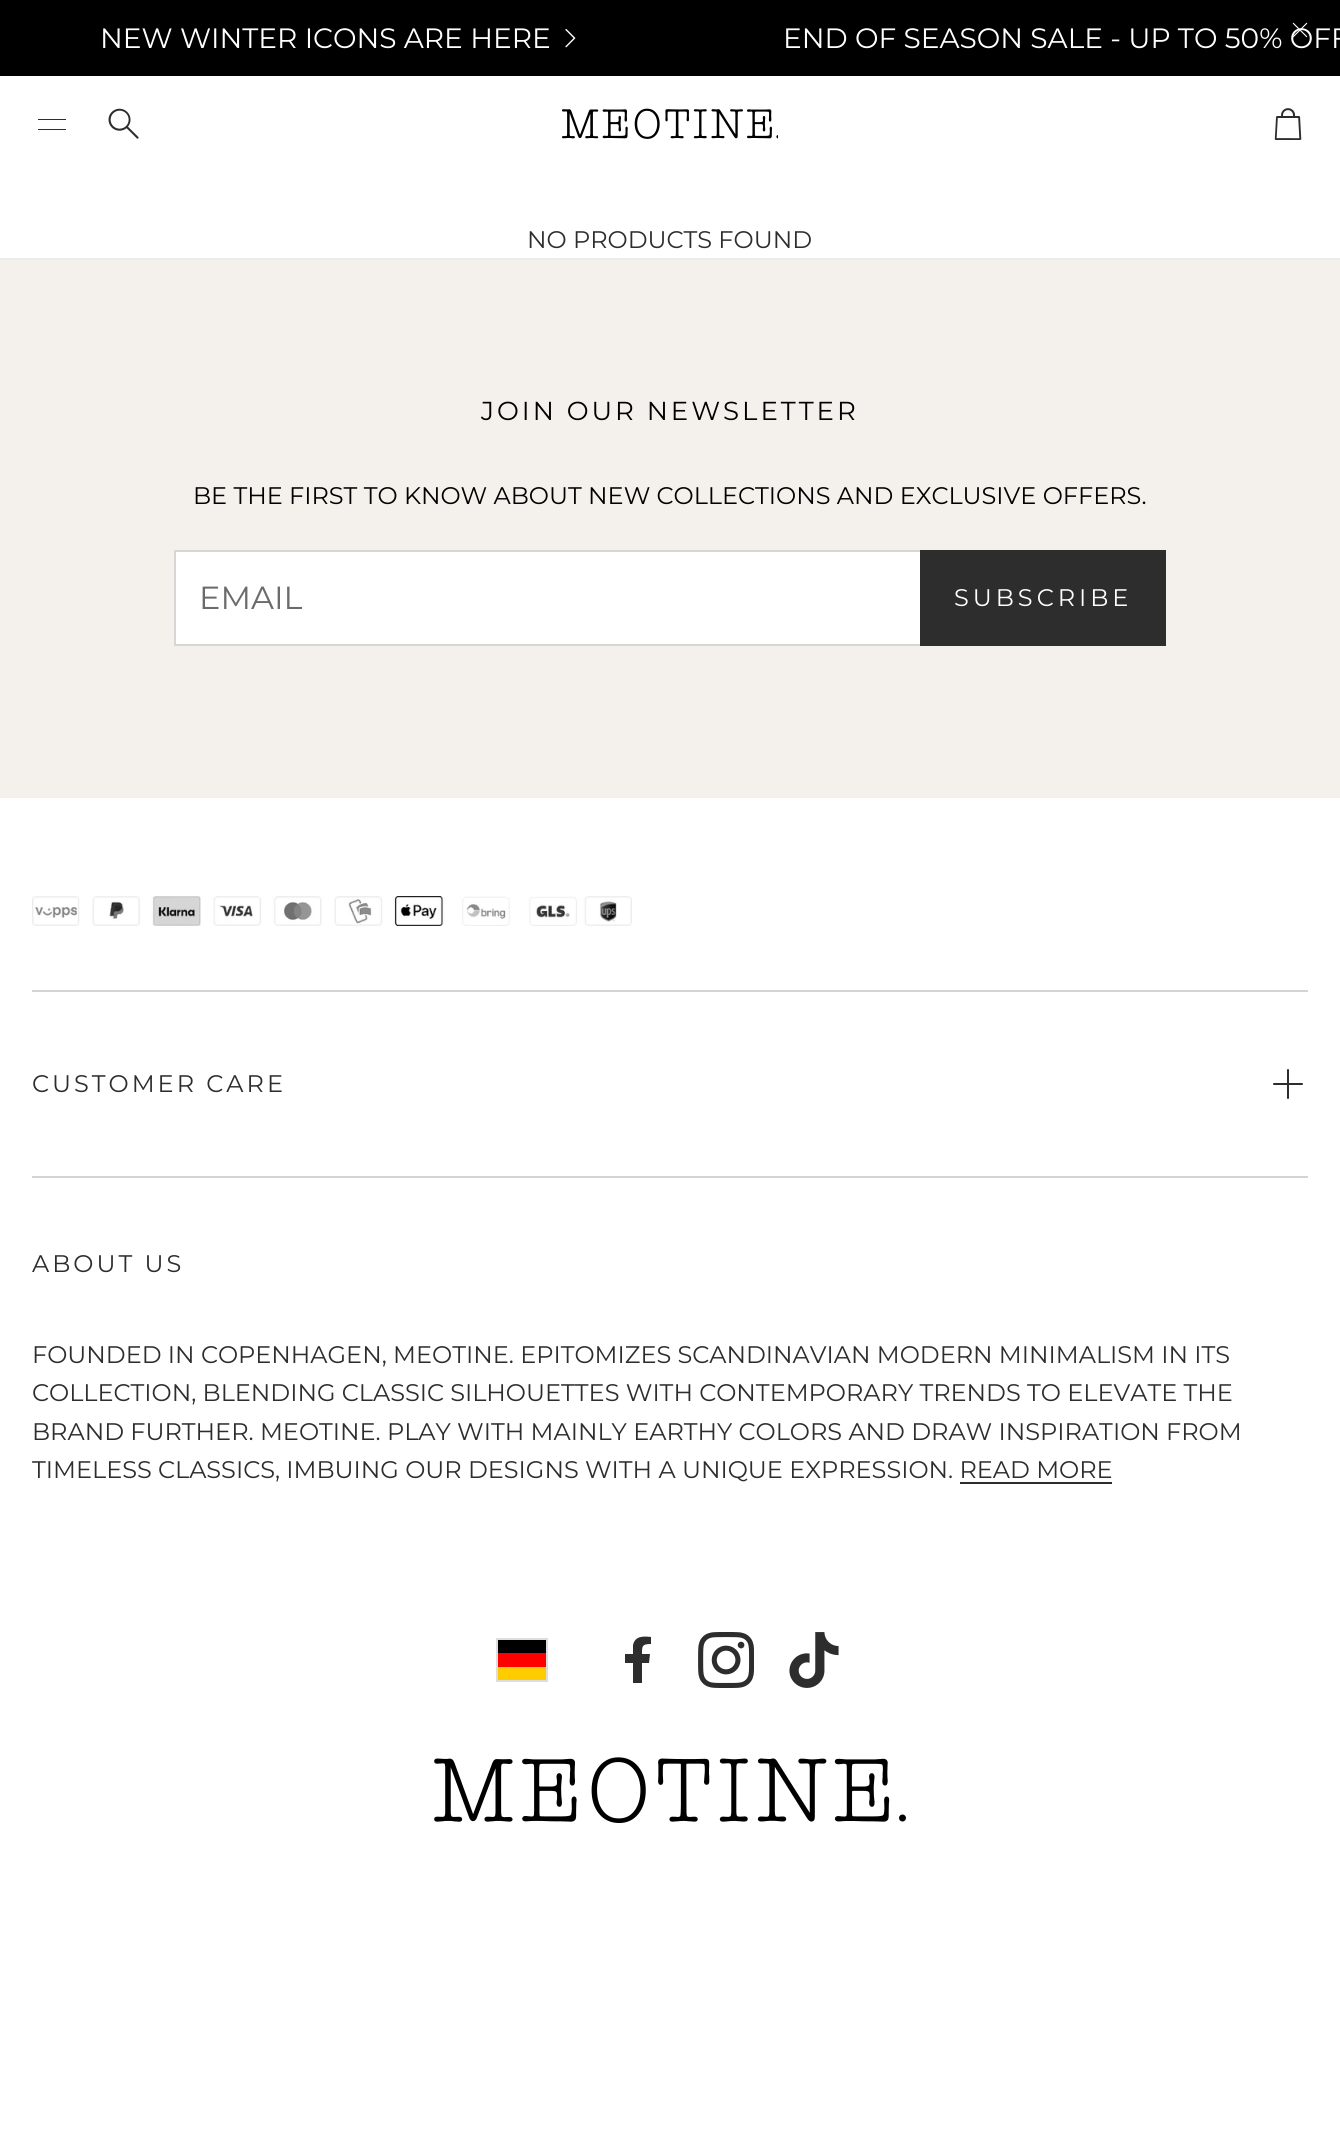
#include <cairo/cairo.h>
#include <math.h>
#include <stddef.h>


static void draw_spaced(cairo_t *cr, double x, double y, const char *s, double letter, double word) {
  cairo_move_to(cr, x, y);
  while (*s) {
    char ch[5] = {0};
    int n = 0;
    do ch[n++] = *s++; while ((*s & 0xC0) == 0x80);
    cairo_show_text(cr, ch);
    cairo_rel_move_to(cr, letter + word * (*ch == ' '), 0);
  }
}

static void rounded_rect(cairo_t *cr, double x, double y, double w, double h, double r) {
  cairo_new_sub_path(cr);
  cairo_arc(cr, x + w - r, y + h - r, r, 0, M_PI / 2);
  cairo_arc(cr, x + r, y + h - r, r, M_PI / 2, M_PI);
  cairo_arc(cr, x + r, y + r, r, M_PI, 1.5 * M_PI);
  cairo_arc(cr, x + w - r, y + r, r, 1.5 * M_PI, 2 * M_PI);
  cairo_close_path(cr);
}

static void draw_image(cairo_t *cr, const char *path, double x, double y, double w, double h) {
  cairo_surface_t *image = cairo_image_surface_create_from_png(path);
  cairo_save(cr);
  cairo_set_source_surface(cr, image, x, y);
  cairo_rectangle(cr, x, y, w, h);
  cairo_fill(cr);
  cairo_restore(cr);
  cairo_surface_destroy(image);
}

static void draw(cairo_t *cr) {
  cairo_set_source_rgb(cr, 1, 1, 1);
  cairo_paint(cr);
  cairo_set_source_rgb(cr, 0, 0, 0);
  cairo_rectangle(cr, 0, 0, 1340, 76);
  cairo_fill(cr);
  draw_image(cr, "images/2.png", 565, 29, 11, 19);
  cairo_set_source_rgb(cr, 45 / 255.0, 45 / 255.0, 45 / 255.0);
  cairo_rectangle(cr, 38, 119, 28, 1);
  cairo_fill(cr);
  cairo_rectangle(cr, 38, 129, 28, 1);
  cairo_fill(cr);
  draw_image(cr, "images/3.png", 108, 108, 31, 31);
  draw_image(cr, "images/4.png", 562, 108, 216, 31);
  draw_image(cr, "images/5.png", 1274, 108, 28, 32);
  cairo_set_source_rgb(cr, 236 / 255.0, 236 / 255.0, 236 / 255.0);
  cairo_rectangle(cr, 0, 258, 1340, 2);
  cairo_fill(cr);
  cairo_set_source_rgb(cr, 244 / 255.0, 240 / 255.0, 235 / 255.0);
  cairo_rectangle(cr, 0, 260, 1340, 538);
  cairo_fill(cr);
  cairo_set_source_rgb(cr, 1, 1, 1);
  cairo_rectangle(cr, 176, 552, 744, 92);
  cairo_fill(cr);
  cairo_set_source_rgb(cr, 214 / 255.0, 214 / 255.0, 214 / 255.0);
  cairo_rectangle(cr, 174, 550, 746, 2);
  cairo_fill(cr);
  cairo_rectangle(cr, 174, 644, 746, 2);
  cairo_fill(cr);
  cairo_rectangle(cr, 174, 550, 2, 96);
  cairo_fill(cr);
  cairo_set_source_rgb(cr, 45 / 255.0, 45 / 255.0, 45 / 255.0);
  cairo_rectangle(cr, 920, 550, 246, 96);
  cairo_fill(cr);
  draw_image(cr, "images/6.png", 32, 896, 600, 30);
  cairo_set_source_rgb(cr, 213 / 255.0, 213 / 255.0, 213 / 255.0);
  cairo_rectangle(cr, 32, 990, 1276, 2);
  cairo_fill(cr);
  cairo_set_source_rgb(cr, 45 / 255.0, 45 / 255.0, 45 / 255.0);
  rounded_rect(cr, 1273, 1083, 30, 2, 1);
  cairo_fill(cr);
  rounded_rect(cr, 1287, 1069, 2, 30, 1);
  cairo_fill(cr);
  cairo_set_source_rgb(cr, 213 / 255.0, 213 / 255.0, 213 / 255.0);
  cairo_rectangle(cr, 32, 1176, 1276, 2);
  cairo_fill(cr);
  cairo_set_source_rgb(cr, 45 / 255.0, 45 / 255.0, 45 / 255.0);
  cairo_rectangle(cr, 960, 1482, 152, 2);
  cairo_fill(cr);
  cairo_rectangle(cr, 497, 1639, 50, 42);
  cairo_set_source_rgb(cr, 221 / 255.0, 221 / 255.0, 221 / 255.0);
  cairo_stroke(cr);
  cairo_set_source_rgb(cr, 1, 204 / 255.0, 0);
  cairo_rectangle(cr, 498, 1667, 48, 13);
  cairo_fill(cr);
  cairo_set_source_rgb(cr, 0, 0, 0);
  cairo_rectangle(cr, 498, 1640, 48, 13);
  cairo_fill(cr);
  cairo_set_source_rgb(cr, 1, 0, 0);
  cairo_rectangle(cr, 498, 1653, 48, 14);
  cairo_fill(cr);
  cairo_set_source_rgb(cr, 45 / 255.0, 45 / 255.0, 45 / 255.0);
  cairo_new_path(cr);
  cairo_move_to(cr, 649, 1663);
  cairo_line_to(cr, 650, 1654);
  cairo_line_to(cr, 642, 1654);
  cairo_curve_to(cr, 642, 1646, 642, 1644, 651, 1644);
  cairo_line_to(cr, 651, 1637);
  cairo_curve_to(cr, 643, 1636, 635, 1636, 633, 1645);
  cairo_line_to(cr, 633, 1654);
  cairo_line_to(cr, 625, 1654);
  cairo_line_to(cr, 625, 1663);
  cairo_line_to(cr, 633, 1663);
  cairo_line_to(cr, 633, 1683);
  cairo_line_to(cr, 642, 1683);
  cairo_line_to(cr, 642, 1663);
  cairo_close_path(cr);
  cairo_fill(cr);
  draw_image(cr, "images/7.png", 698, 1632, 56, 56);
  draw_image(cr, "images/8.png", 789, 1632, 50, 56);
  draw_image(cr, "images/9.png", 434, 1757, 472, 66);
  cairo_select_font_face(cr, "Montserrat", CAIRO_FONT_SLANT_NORMAL, CAIRO_FONT_WEIGHT_NORMAL);
  cairo_set_font_size(cr, 28);
  cairo_set_source_rgb(cr, 1, 1, 1);
  cairo_move_to(cr, 100, 48);
  cairo_show_text(cr, "NEW WINTER ICONS ARE HERE");
  cairo_move_to(cr, 783, 48);
  cairo_show_text(cr, "END OF SEASON SALE - UP TO 50% OFF");
  draw_image(cr, "images/1.png", 1292, 22, 16, 16);
  cairo_set_font_size(cr, 24);
  cairo_set_source_rgb(cr, 45 / 255.0, 45 / 255.0, 45 / 255.0);
  cairo_move_to(cr, 527, 248);
  cairo_show_text(cr, "NO PRODUCTS FOUND");
  cairo_set_font_size(cr, 26);
  cairo_set_source_rgb(cr, 0, 0, 0);
  draw_spaced(cr, 481, 420, "JOIN OUR NEWSLETTER", 3, 0);
  cairo_set_font_size(cr, 24);
  cairo_move_to(cr, 193, 504);
  cairo_show_text(cr, "BE THE FIRST TO KNOW ABOUT NEW COLLECTIONS AND EXCLUSIVE OFFERS.");
  cairo_set_font_size(cr, 32);
  cairo_set_source_rgb(cr, 107 / 255.0, 107 / 255.0, 107 / 255.0);
  cairo_move_to(cr, 199, 609);
  cairo_show_text(cr, "EMAIL");
  cairo_set_font_size(cr, 24);
  cairo_set_source_rgb(cr, 1, 1, 1);
  draw_spaced(cr, 954, 606, "SUBSCRIBE", 4, 0);
  cairo_set_source_rgb(cr, 45 / 255.0, 45 / 255.0, 45 / 255.0);
  draw_spaced(cr, 32, 1092, "CUSTOMER CARE", 3, 0);
  draw_spaced(cr, 32, 1272, "ABOUT US", 3, 0);
  cairo_move_to(cr, 32, 1363);
  cairo_show_text(cr, "FOUNDED IN COPENHAGEN, MEOTINE. EPITOMIZES SCANDINAVIAN MODERN MINIMALISM IN ITS");
  cairo_move_to(cr, 32, 1401);
  cairo_show_text(cr, "COLLECTION, BLENDING CLASSIC SILHOUETTES WITH CONTEMPORARY TRENDS TO ELEVATE THE");
  cairo_move_to(cr, 32, 1440);
  cairo_show_text(cr, "BRAND FURTHER. MEOTINE. PLAY WITH MAINLY EARTHY COLORS AND DRAW INSPIRATION FROM");
  cairo_move_to(cr, 32, 1478);
  cairo_show_text(cr, "TIMELESS CLASSICS, IMBUING OUR DESIGNS WITH A UNIQUE EXPRESSION. READ MORE");
}

int main(void) {
  cairo_surface_t *surface = cairo_image_surface_create(CAIRO_FORMAT_RGB24, 1340, 2148);
  cairo_t *cr = cairo_create(surface);
  cairo_font_options_t *options = cairo_font_options_create();
  cairo_font_options_set_hint_metrics(options, CAIRO_HINT_METRICS_OFF);
  cairo_font_options_set_hint_style(options, CAIRO_HINT_STYLE_NONE);
  cairo_set_font_options(cr, options);
  cairo_set_miter_limit(cr, 4);
  draw(cr);
  cairo_surface_write_to_png(surface, "out.png");
  cairo_font_options_destroy(options);
  cairo_destroy(cr);
  cairo_surface_destroy(surface);
  return 0;
}
